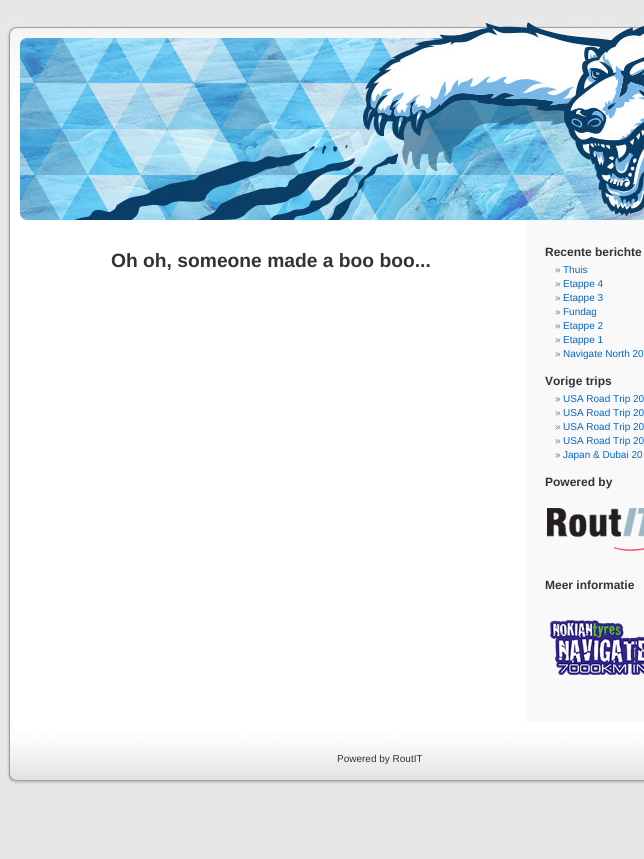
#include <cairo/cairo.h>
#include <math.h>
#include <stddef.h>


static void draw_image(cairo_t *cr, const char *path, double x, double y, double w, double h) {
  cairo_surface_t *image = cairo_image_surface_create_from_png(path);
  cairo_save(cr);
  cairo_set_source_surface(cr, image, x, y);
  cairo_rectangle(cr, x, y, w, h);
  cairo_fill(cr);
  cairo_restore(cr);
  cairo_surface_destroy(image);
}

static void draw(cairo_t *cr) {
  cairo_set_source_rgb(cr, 231 / 255.0, 231 / 255.0, 231 / 255.0);
  cairo_paint(cr);
  draw_image(cr, "images/1.png", 7, 220, 637, 502);
  draw_image(cr, "images/2.png", 7, 20, 637, 200);
  draw_image(cr, "images/3.png", 547, 508, 97, 43);
  draw_image(cr, "images/4.png", 550, 620, 94, 55);
  draw_image(cr, "images/5.png", 7, 722, 637, 62);
  cairo_select_font_face(cr, "Liberation Sans", CAIRO_FONT_SLANT_NORMAL, CAIRO_FONT_WEIGHT_BOLD);
  cairo_set_font_size(cr, 19.25);
  cairo_set_source_rgb(cr, 51 / 255.0, 51 / 255.0, 51 / 255.0);
  cairo_move_to(cr, 111, 267);
  cairo_show_text(cr, "Oh oh, someone made a boo boo...");
  cairo_set_font_size(cr, 12);
  cairo_move_to(cr, 545, 256);
  cairo_show_text(cr, "Recente berichte");
  cairo_select_font_face(cr, "Liberation Sans", CAIRO_FONT_SLANT_NORMAL, CAIRO_FONT_WEIGHT_NORMAL);
  cairo_set_font_size(cr, 10);
  cairo_set_source_rgb(cr, 119 / 255.0, 119 / 255.0, 119 / 255.0);
  cairo_move_to(cr, 555, 273);
  cairo_show_text(cr, "»");
  cairo_set_source_rgb(cr, 0, 102 / 255.0, 204 / 255.0);
  cairo_move_to(cr, 563, 273);
  cairo_show_text(cr, "Thuis");
  cairo_set_source_rgb(cr, 119 / 255.0, 119 / 255.0, 119 / 255.0);
  cairo_move_to(cr, 555, 287);
  cairo_show_text(cr, "»");
  cairo_set_source_rgb(cr, 0, 102 / 255.0, 204 / 255.0);
  cairo_move_to(cr, 563, 287);
  cairo_show_text(cr, "Etappe 4");
  cairo_set_source_rgb(cr, 119 / 255.0, 119 / 255.0, 119 / 255.0);
  cairo_move_to(cr, 555, 301);
  cairo_show_text(cr, "»");
  cairo_set_source_rgb(cr, 0, 102 / 255.0, 204 / 255.0);
  cairo_move_to(cr, 563, 301);
  cairo_show_text(cr, "Etappe 3");
  cairo_set_source_rgb(cr, 119 / 255.0, 119 / 255.0, 119 / 255.0);
  cairo_move_to(cr, 555, 315);
  cairo_show_text(cr, "»");
  cairo_set_source_rgb(cr, 0, 102 / 255.0, 204 / 255.0);
  cairo_move_to(cr, 563, 315);
  cairo_show_text(cr, "Fundag");
  cairo_set_source_rgb(cr, 119 / 255.0, 119 / 255.0, 119 / 255.0);
  cairo_move_to(cr, 555, 329);
  cairo_show_text(cr, "»");
  cairo_set_source_rgb(cr, 0, 102 / 255.0, 204 / 255.0);
  cairo_move_to(cr, 563, 329);
  cairo_show_text(cr, "Etappe 2");
  cairo_set_source_rgb(cr, 119 / 255.0, 119 / 255.0, 119 / 255.0);
  cairo_move_to(cr, 555, 343);
  cairo_show_text(cr, "»");
  cairo_set_source_rgb(cr, 0, 102 / 255.0, 204 / 255.0);
  cairo_move_to(cr, 563, 343);
  cairo_show_text(cr, "Etappe 1");
  cairo_set_source_rgb(cr, 119 / 255.0, 119 / 255.0, 119 / 255.0);
  cairo_move_to(cr, 555, 357);
  cairo_show_text(cr, "»");
  cairo_set_source_rgb(cr, 0, 102 / 255.0, 204 / 255.0);
  cairo_move_to(cr, 563, 357);
  cairo_show_text(cr, "Navigate North 20");
  cairo_select_font_face(cr, "Liberation Sans", CAIRO_FONT_SLANT_NORMAL, CAIRO_FONT_WEIGHT_BOLD);
  cairo_set_font_size(cr, 12);
  cairo_set_source_rgb(cr, 51 / 255.0, 51 / 255.0, 51 / 255.0);
  cairo_move_to(cr, 545, 385);
  cairo_show_text(cr, "Vorige trips");
  cairo_select_font_face(cr, "Liberation Sans", CAIRO_FONT_SLANT_NORMAL, CAIRO_FONT_WEIGHT_NORMAL);
  cairo_set_font_size(cr, 10);
  cairo_set_source_rgb(cr, 119 / 255.0, 119 / 255.0, 119 / 255.0);
  cairo_move_to(cr, 555, 402);
  cairo_show_text(cr, "»");
  cairo_set_source_rgb(cr, 0, 102 / 255.0, 204 / 255.0);
  cairo_move_to(cr, 563, 402);
  cairo_show_text(cr, "USA Road Trip 20");
  cairo_set_source_rgb(cr, 119 / 255.0, 119 / 255.0, 119 / 255.0);
  cairo_move_to(cr, 555, 416);
  cairo_show_text(cr, "»");
  cairo_set_source_rgb(cr, 0, 102 / 255.0, 204 / 255.0);
  cairo_move_to(cr, 563, 416);
  cairo_show_text(cr, "USA Road Trip 20");
  cairo_set_source_rgb(cr, 119 / 255.0, 119 / 255.0, 119 / 255.0);
  cairo_move_to(cr, 555, 430);
  cairo_show_text(cr, "»");
  cairo_set_source_rgb(cr, 0, 102 / 255.0, 204 / 255.0);
  cairo_move_to(cr, 563, 430);
  cairo_show_text(cr, "USA Road Trip 20");
  cairo_set_source_rgb(cr, 119 / 255.0, 119 / 255.0, 119 / 255.0);
  cairo_move_to(cr, 555, 444);
  cairo_show_text(cr, "»");
  cairo_set_source_rgb(cr, 0, 102 / 255.0, 204 / 255.0);
  cairo_move_to(cr, 563, 444);
  cairo_show_text(cr, "USA Road Trip 20");
  cairo_set_source_rgb(cr, 119 / 255.0, 119 / 255.0, 119 / 255.0);
  cairo_move_to(cr, 555, 458);
  cairo_show_text(cr, "»");
  cairo_set_source_rgb(cr, 0, 102 / 255.0, 204 / 255.0);
  cairo_move_to(cr, 563, 458);
  cairo_show_text(cr, "Japan & Dubai 20");
  cairo_select_font_face(cr, "Liberation Sans", CAIRO_FONT_SLANT_NORMAL, CAIRO_FONT_WEIGHT_BOLD);
  cairo_set_font_size(cr, 12);
  cairo_set_source_rgb(cr, 51 / 255.0, 51 / 255.0, 51 / 255.0);
  cairo_move_to(cr, 545, 486);
  cairo_show_text(cr, "Powered by");
  cairo_move_to(cr, 545, 589);
  cairo_show_text(cr, "Meer informatie");
  cairo_select_font_face(cr, "Liberation Sans", CAIRO_FONT_SLANT_NORMAL, CAIRO_FONT_WEIGHT_NORMAL);
  cairo_set_font_size(cr, 10);
  cairo_move_to(cr, 337, 762);
  cairo_show_text(cr, "Powered by RoutIT");
}

int main(void) {
  cairo_surface_t *surface = cairo_image_surface_create(CAIRO_FORMAT_RGB24, 644, 859);
  cairo_t *cr = cairo_create(surface);
  cairo_font_options_t *options = cairo_font_options_create();
  cairo_font_options_set_hint_metrics(options, CAIRO_HINT_METRICS_OFF);
  cairo_font_options_set_hint_style(options, CAIRO_HINT_STYLE_NONE);
  cairo_set_font_options(cr, options);
  cairo_set_miter_limit(cr, 4);
  draw(cr);
  cairo_surface_write_to_png(surface, "out.png");
  cairo_font_options_destroy(options);
  cairo_destroy(cr);
  cairo_surface_destroy(surface);
  return 0;
}
